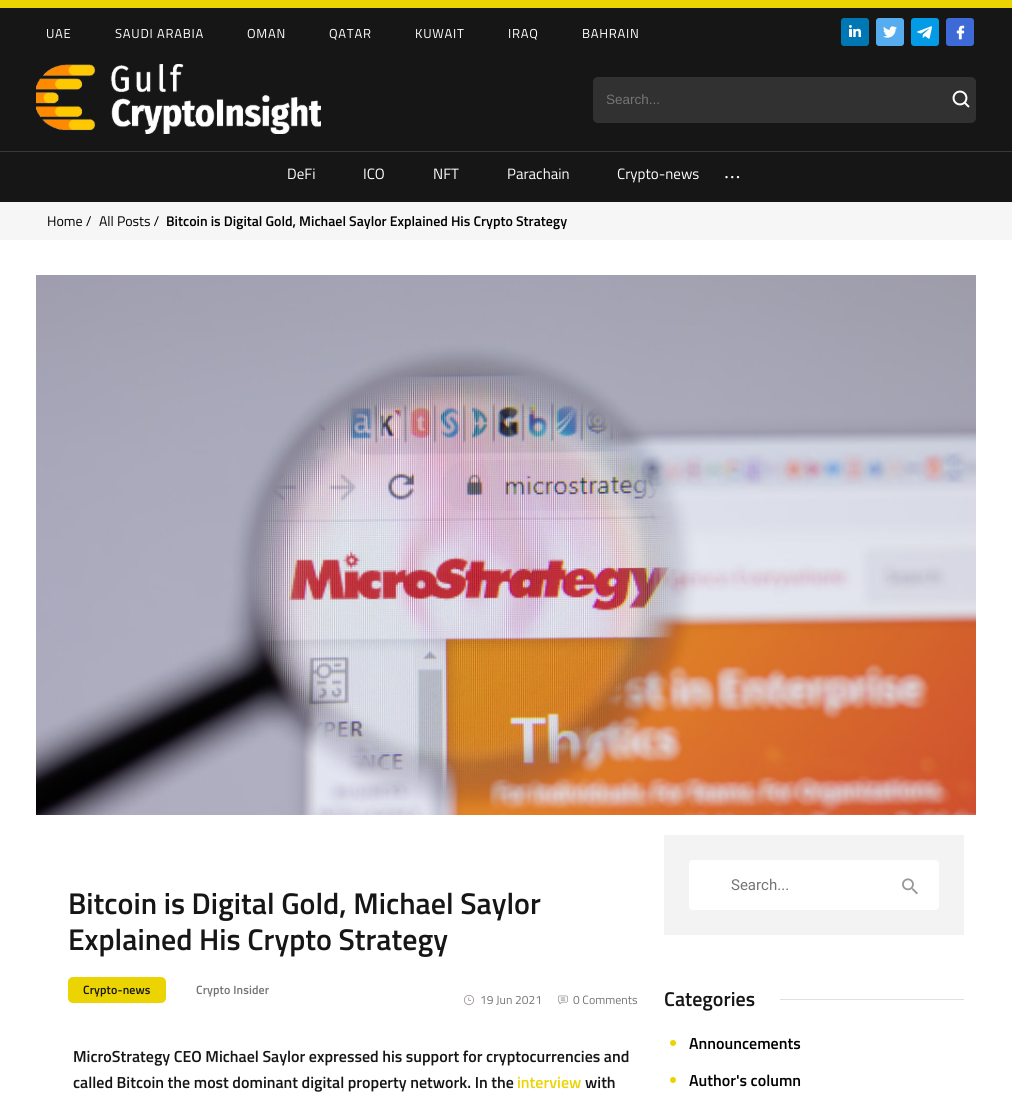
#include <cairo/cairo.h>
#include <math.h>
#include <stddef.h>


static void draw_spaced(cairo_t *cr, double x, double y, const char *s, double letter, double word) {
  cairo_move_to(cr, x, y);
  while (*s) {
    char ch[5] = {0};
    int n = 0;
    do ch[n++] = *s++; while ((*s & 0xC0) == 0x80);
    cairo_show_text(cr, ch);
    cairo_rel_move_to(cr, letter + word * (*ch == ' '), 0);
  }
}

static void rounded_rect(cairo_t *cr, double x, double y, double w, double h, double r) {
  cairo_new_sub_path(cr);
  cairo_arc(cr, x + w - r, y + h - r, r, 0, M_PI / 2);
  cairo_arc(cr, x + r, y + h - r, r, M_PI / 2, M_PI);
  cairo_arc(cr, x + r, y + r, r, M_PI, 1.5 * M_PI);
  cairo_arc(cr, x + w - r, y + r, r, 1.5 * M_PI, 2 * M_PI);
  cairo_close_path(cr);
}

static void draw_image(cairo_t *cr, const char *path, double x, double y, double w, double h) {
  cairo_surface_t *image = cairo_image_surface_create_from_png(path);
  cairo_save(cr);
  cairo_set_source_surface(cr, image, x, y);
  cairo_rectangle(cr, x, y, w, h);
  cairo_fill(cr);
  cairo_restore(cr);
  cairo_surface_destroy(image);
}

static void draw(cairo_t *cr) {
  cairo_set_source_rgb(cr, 1, 1, 1);
  cairo_paint(cr);
  cairo_set_source_rgb(cr, 236 / 255.0, 212 / 255.0, 3 / 255.0);
  cairo_rectangle(cr, 0, 0, 1012, 8);
  cairo_fill(cr);
  cairo_set_source_rgb(cr, 22 / 255.0, 22 / 255.0, 22 / 255.0);
  cairo_rectangle(cr, 0, 8, 1012, 143);
  cairo_fill(cr);
  draw_image(cr, "images/1.png", 841, 18, 28, 28);
  draw_image(cr, "images/2.png", 876, 18, 28, 28);
  draw_image(cr, "images/3.png", 911, 18, 28, 28);
  draw_image(cr, "images/4.png", 946, 18, 28, 28);
  draw_image(cr, "images/5.png", 36, 64, 285, 70);
  cairo_set_source_rgb(cr, 49 / 255.0, 49 / 255.0, 49 / 255.0);
  rounded_rect(cr, 593, 77, 383, 46, 5);
  cairo_fill(cr);
  draw_image(cr, "images/6.png", 952, 90, 18, 18);
  cairo_set_source_rgb(cr, 22 / 255.0, 22 / 255.0, 22 / 255.0);
  cairo_rectangle(cr, 0, 152, 1012, 50);
  cairo_fill(cr);
  cairo_set_source_rgb(cr, 57 / 255.0, 57 / 255.0, 57 / 255.0);
  cairo_rectangle(cr, 0, 151, 1012, 1);
  cairo_fill(cr);
  cairo_set_source_rgb(cr, 246 / 255.0, 246 / 255.0, 246 / 255.0);
  cairo_rectangle(cr, 0, 202, 1012, 38);
  cairo_fill(cr);
  draw_image(cr, "images/7.png", 36, 275, 940, 540);
  cairo_set_source_rgb(cr, 236 / 255.0, 212 / 255.0, 3 / 255.0);
  rounded_rect(cr, 68, 977, 98, 26, 5);
  cairo_fill(cr);
  draw_image(cr, "images/8.png", 464, 995, 10, 10);
  draw_image(cr, "images/9.png", 558, 995, 10, 10);
  cairo_set_source_rgb(cr, 243 / 255.0, 243 / 255.0, 243 / 255.0);
  cairo_rectangle(cr, 664, 835, 300, 100);
  cairo_fill(cr);
  cairo_set_source_rgb(cr, 1, 1, 1);
  rounded_rect(cr, 688.5, 859.5, 251, 51, 4.5);
  cairo_fill_preserve(cr);
  cairo_set_source_rgb(cr, 243 / 255.0, 243 / 255.0, 243 / 255.0);
  cairo_set_line_width(cr, 1);
  cairo_stroke(cr);
  draw_image(cr, "images/10.png", 902, 878, 16, 17);
  cairo_set_source_rgb(cr, 224 / 255.0, 224 / 255.0, 224 / 255.0);
  cairo_rectangle(cr, 780, 999, 184, 1);
  cairo_fill(cr);
  cairo_set_source_rgb(cr, 236 / 255.0, 212 / 255.0, 3 / 255.0);
  cairo_arc(cr, 673, 1043, 3, 0, 2 * M_PI);
  cairo_fill(cr);
  cairo_arc(cr, 673, 1080, 3, 0, 2 * M_PI);
  cairo_fill(cr);
  cairo_select_font_face(cr, "Titillium Web", CAIRO_FONT_SLANT_NORMAL, CAIRO_FONT_WEIGHT_NORMAL);
  cairo_set_font_size(cr, 13);
  cairo_set_source_rgb(cr, 1, 1, 1);
  draw_spaced(cr, 46, 38, "UAE", 0.75, 0);
  draw_spaced(cr, 115, 38, "SAUDI ARABIA", 0.75, 0);
  draw_spaced(cr, 247, 38, "OMAN", 0.75, 0);
  draw_spaced(cr, 329, 38, "QATAR", 0.75, 0);
  draw_spaced(cr, 415, 38, "KUWAIT", 0.75, 0);
  draw_spaced(cr, 508, 38, "IRAQ", 0.75, 0);
  draw_spaced(cr, 582, 38, "BAHRAIN", 0.75, 0);
  cairo_select_font_face(cr, "Liberation Sans", CAIRO_FONT_SLANT_NORMAL, CAIRO_FONT_WEIGHT_NORMAL);
  cairo_set_font_size(cr, 13.5);
  cairo_set_source_rgb(cr, 117 / 255.0, 117 / 255.0, 117 / 255.0);
  cairo_move_to(cr, 606, 104);
  cairo_show_text(cr, "Search...");
  cairo_select_font_face(cr, "Titillium Web", CAIRO_FONT_SLANT_NORMAL, CAIRO_FONT_WEIGHT_NORMAL);
  cairo_set_font_size(cr, 15);
  cairo_set_source_rgb(cr, 1, 1, 1);
  cairo_move_to(cr, 287, 179);
  cairo_show_text(cr, "DeFi");
  cairo_move_to(cr, 363, 179);
  cairo_show_text(cr, "ICO");
  cairo_move_to(cr, 433, 179);
  cairo_show_text(cr, "NFT");
  cairo_move_to(cr, 507, 179);
  cairo_show_text(cr, "Parachain");
  cairo_move_to(cr, 617, 179);
  cairo_show_text(cr, "Crypto-news");
  cairo_select_font_face(cr, "Liberation Serif", CAIRO_FONT_SLANT_NORMAL, CAIRO_FONT_WEIGHT_NORMAL);
  cairo_set_font_size(cr, 20);
  draw_spaced(cr, 724, 178, "...", 0.75, 0);
  cairo_select_font_face(cr, "Titillium Web", CAIRO_FONT_SLANT_NORMAL, CAIRO_FONT_WEIGHT_NORMAL);
  cairo_set_font_size(cr, 14);
  cairo_set_source_rgb(cr, 0, 0, 0);
  cairo_move_to(cr, 47, 226);
  cairo_show_text(cr, "Home /");
  cairo_move_to(cr, 99, 226);
  cairo_show_text(cr, "All Posts /");
  cairo_select_font_face(cr, "Titillium Web SemiBold", CAIRO_FONT_SLANT_NORMAL, CAIRO_FONT_WEIGHT_NORMAL);
  cairo_move_to(cr, 166, 226);
  cairo_show_text(cr, "Bitcoin is Digital Gold, Michael Saylor Explained His Crypto Strategy");
  cairo_set_font_size(cr, 30);
  cairo_set_source_rgb(cr, 22 / 255.0, 22 / 255.0, 22 / 255.0);
  cairo_move_to(cr, 68, 914);
  cairo_show_text(cr, "Bitcoin is Digital Gold, Michael Saylor");
  cairo_move_to(cr, 68, 950);
  cairo_show_text(cr, "Explained His Crypto Strategy");
  cairo_set_font_size(cr, 12);
  draw_spaced(cr, 83, 994, "Crypto-news", 0.1, 0);
  cairo_set_source_rgb(cr, 117 / 255.0, 117 / 255.0, 117 / 255.0);
  draw_spaced(cr, 196, 994, "Crypto Insider", 0.1, 0);
  cairo_select_font_face(cr, "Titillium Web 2", CAIRO_FONT_SLANT_NORMAL, CAIRO_FONT_WEIGHT_NORMAL);
  cairo_move_to(cr, 480, 1004);
  cairo_show_text(cr, "19 Jun 2021");
  cairo_select_font_face(cr, "Titillium Web", CAIRO_FONT_SLANT_NORMAL, CAIRO_FONT_WEIGHT_NORMAL);
  cairo_move_to(cr, 573, 1004);
  cairo_show_text(cr, "0 Comments");
  cairo_select_font_face(cr, "Titillium Web 2 SemiBold", CAIRO_FONT_SLANT_NORMAL, CAIRO_FONT_WEIGHT_NORMAL);
  cairo_set_font_size(cr, 16);
  cairo_set_source_rgb(cr, 22 / 255.0, 22 / 255.0, 22 / 255.0);
  cairo_move_to(cr, 73, 1062);
  cairo_show_text(cr, "MicroStrategy CEO Michael Saylor expressed his support for cryptocurrencies and");
  cairo_move_to(cr, 73, 1088);
  cairo_show_text(cr, "called Bitcoin the most dominant digital property network. In the");
  cairo_set_source_rgb(cr, 236 / 255.0, 212 / 255.0, 3 / 255.0);
  cairo_move_to(cr, 517, 1088);
  cairo_show_text(cr, "interview");
  cairo_set_source_rgb(cr, 22 / 255.0, 22 / 255.0, 22 / 255.0);
  cairo_move_to(cr, 585, 1088);
  cairo_show_text(cr, "with");
  cairo_select_font_face(cr, "Heebo", CAIRO_FONT_SLANT_NORMAL, CAIRO_FONT_WEIGHT_NORMAL);
  cairo_set_font_size(cr, 15);
  cairo_set_source_rgb(cr, 117 / 255.0, 117 / 255.0, 117 / 255.0);
  cairo_move_to(cr, 731, 890);
  cairo_show_text(cr, "Search...");
  cairo_select_font_face(cr, "Titillium Web SemiBold", CAIRO_FONT_SLANT_NORMAL, CAIRO_FONT_WEIGHT_NORMAL);
  cairo_set_font_size(cr, 20);
  cairo_set_source_rgb(cr, 22 / 255.0, 22 / 255.0, 22 / 255.0);
  cairo_move_to(cr, 664, 1006);
  cairo_show_text(cr, "Categories");
  cairo_set_font_size(cr, 16);
  cairo_set_source_rgb(cr, 0, 0, 0);
  cairo_move_to(cr, 689, 1049);
  cairo_show_text(cr, "Announcements");
  cairo_move_to(cr, 689, 1086);
  cairo_show_text(cr, "Author's column");
}

int main(void) {
  cairo_surface_t *surface = cairo_image_surface_create(CAIRO_FORMAT_RGB24, 1012, 1100);
  cairo_t *cr = cairo_create(surface);
  cairo_font_options_t *options = cairo_font_options_create();
  cairo_font_options_set_hint_metrics(options, CAIRO_HINT_METRICS_OFF);
  cairo_font_options_set_hint_style(options, CAIRO_HINT_STYLE_NONE);
  cairo_set_font_options(cr, options);
  cairo_set_miter_limit(cr, 4);
  draw(cr);
  cairo_surface_write_to_png(surface, "out.png");
  cairo_font_options_destroy(options);
  cairo_destroy(cr);
  cairo_surface_destroy(surface);
  return 0;
}
